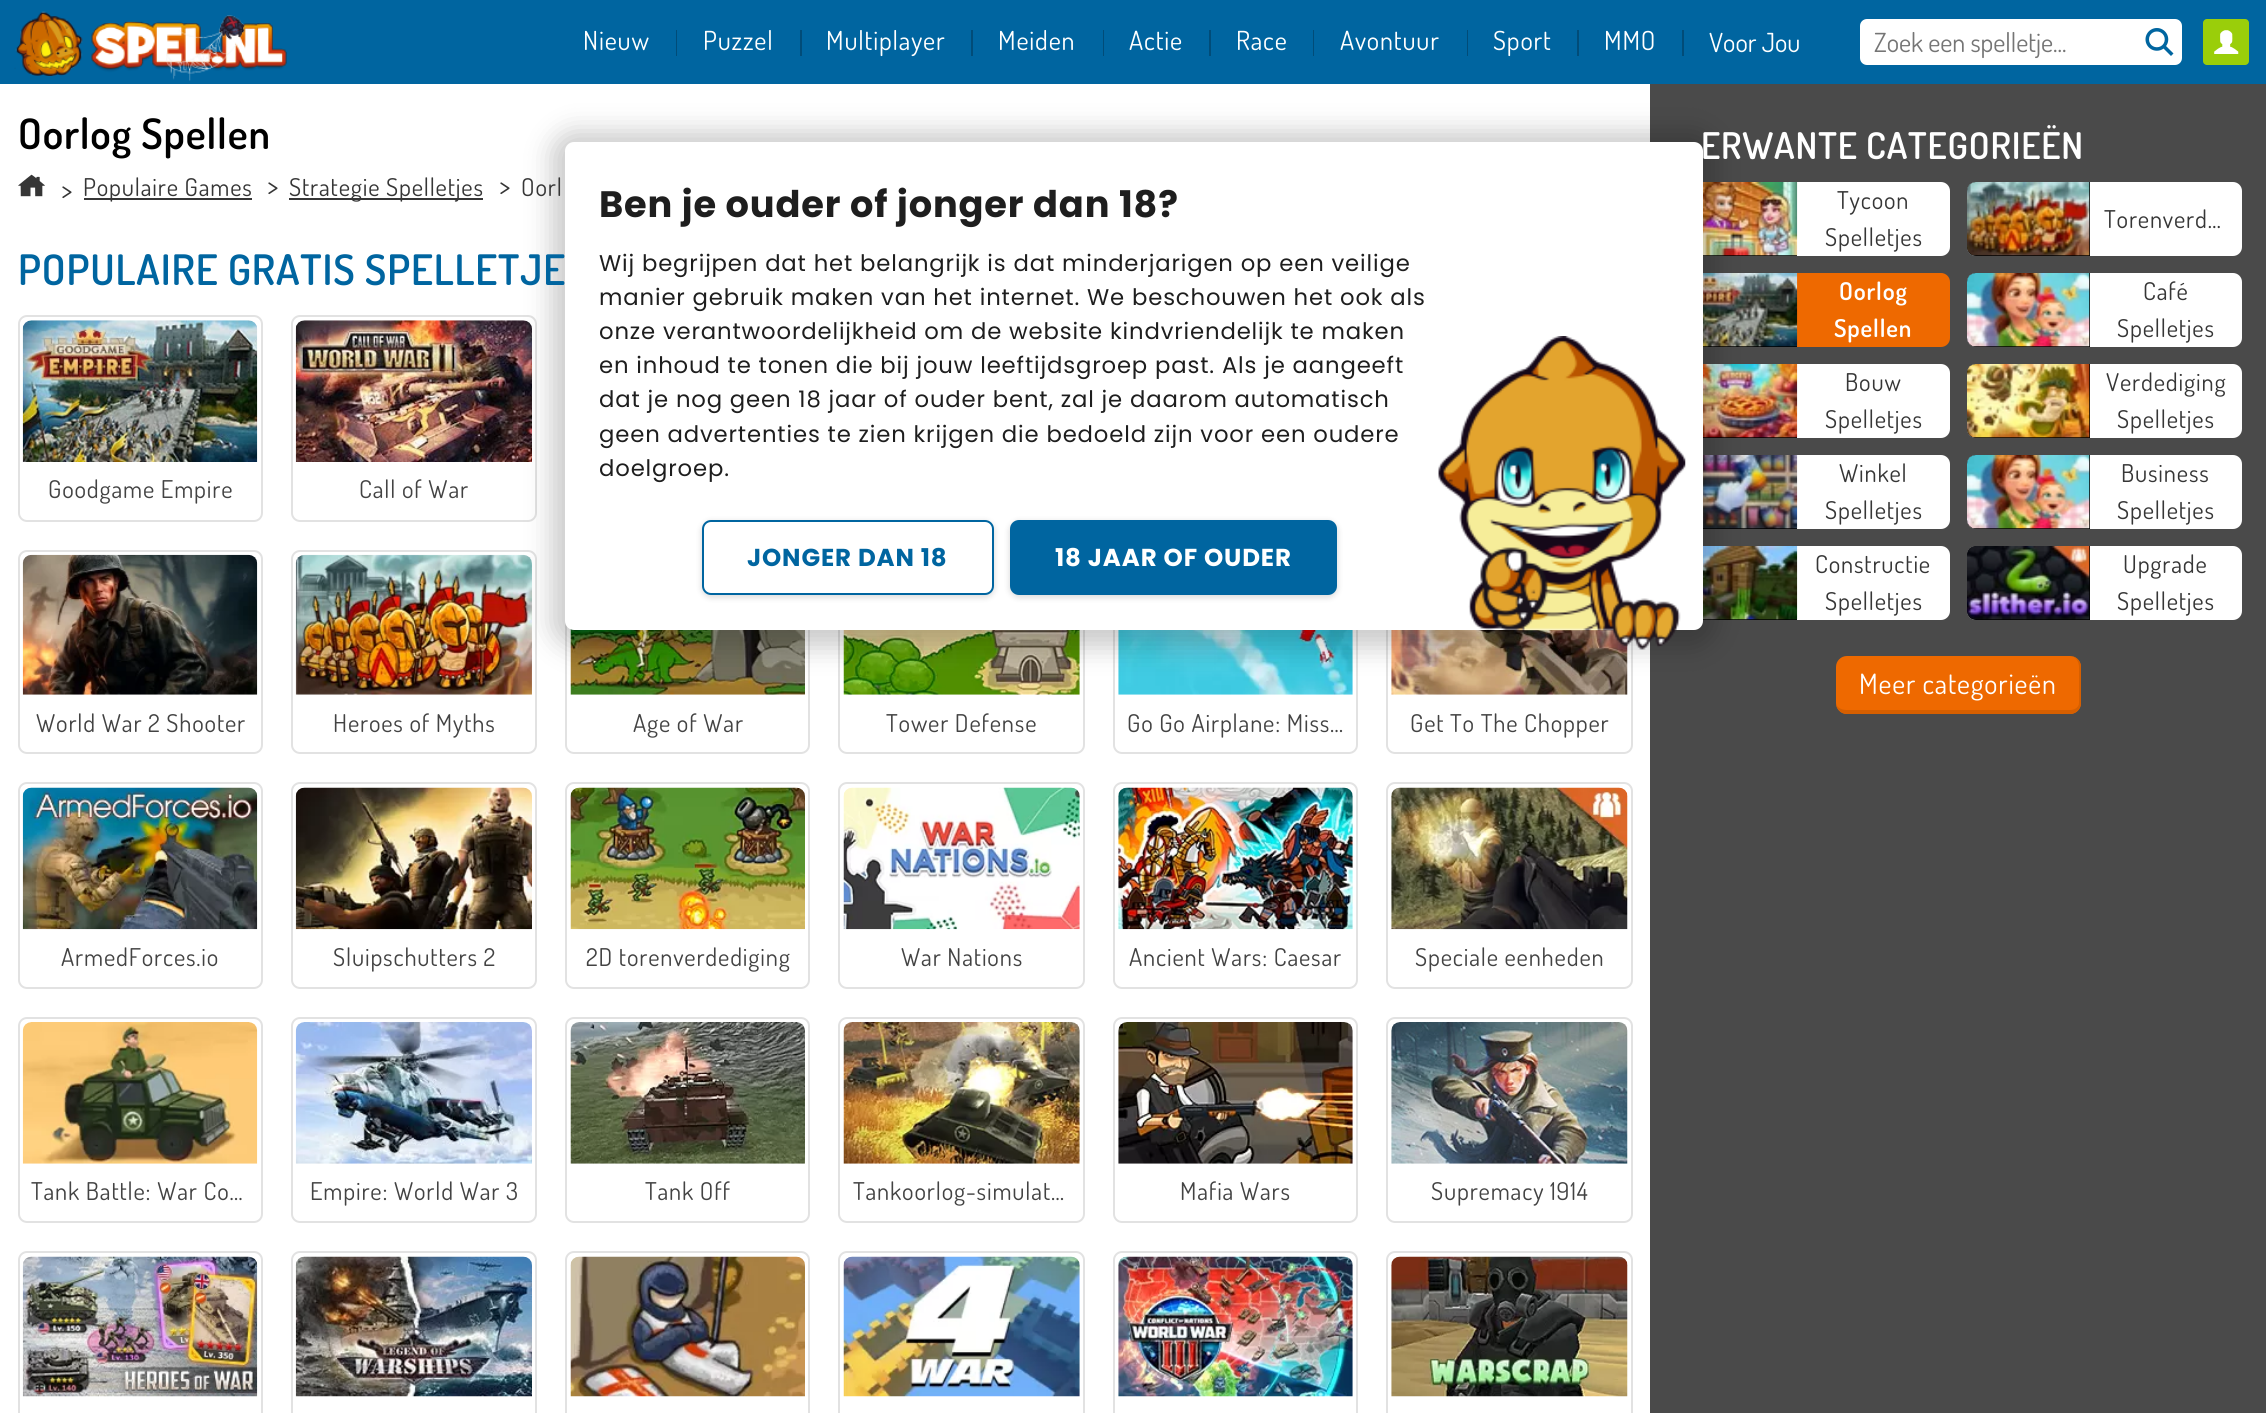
#include <cairo/cairo.h>
#include <math.h>
#include <stddef.h>


static void draw_spaced(cairo_t *cr, double x, double y, const char *s, double letter, double word) {
  cairo_move_to(cr, x, y);
  while (*s) {
    char ch[5] = {0};
    int n = 0;
    do ch[n++] = *s++; while ((*s & 0xC0) == 0x80);
    cairo_show_text(cr, ch);
    cairo_rel_move_to(cr, letter + word * (*ch == ' '), 0);
  }
}

static void rounded_rect(cairo_t *cr, double x, double y, double w, double h, double r) {
  cairo_new_sub_path(cr);
  cairo_arc(cr, x + w - r, y + h - r, r, 0, M_PI / 2);
  cairo_arc(cr, x + r, y + h - r, r, M_PI / 2, M_PI);
  cairo_arc(cr, x + r, y + r, r, M_PI, 1.5 * M_PI);
  cairo_arc(cr, x + w - r, y + r, r, 1.5 * M_PI, 2 * M_PI);
  cairo_close_path(cr);
}

static void draw_shadow(cairo_t *cr, double x, double y, double w, double h, double r, double blur, double alpha) {
  cairo_push_group_with_content(cr, CAIRO_CONTENT_ALPHA);
  cairo_set_operator(cr, CAIRO_OPERATOR_SOURCE);
  for (int i = 15; i >= -15 && fmin(w, h) + blur * i / 3 > 0; i -= 2) {
    double e = blur * i / 6;
    cairo_set_source_rgba(cr, 0, 0, 0, alpha * erfc((i - 1) / 8.5) / 2);
    rounded_rect(cr, x - e, y - e, w + 2 * e, h + 2 * e, fmax(0, fmin(r + e + blur * .6, fmin(w, h) / 2 + e)));
    cairo_fill(cr);
  }
  cairo_pattern_t *soft = cairo_pop_group(cr);
  cairo_mask(cr, soft);
  cairo_pattern_destroy(soft);
}

static void draw_image(cairo_t *cr, const char *path, double x, double y, double w, double h) {
  cairo_surface_t *image = cairo_image_surface_create_from_png(path);
  cairo_save(cr);
  cairo_set_source_surface(cr, image, x, y);
  cairo_rectangle(cr, x, y, w, h);
  cairo_fill(cr);
  cairo_restore(cr);
  cairo_surface_destroy(image);
}

static void draw(cairo_t *cr) {
  cairo_set_source_rgb(cr, 1, 1, 1);
  cairo_paint(cr);
  cairo_set_source_rgb(cr, 0, 101 / 255.0, 160 / 255.0);
  cairo_rectangle(cr, 0, 0, 2266, 84);
  cairo_fill(cr);
  draw_image(cr, "images/1.png", 14, 11, 273, 70);
  cairo_set_source_rgb(cr, 1 / 255.0, 76 / 255.0, 120 / 255.0);
  cairo_rectangle(cr, 676, 30, 1, 26);
  cairo_fill(cr);
  cairo_rectangle(cr, 800, 30, 2, 26);
  cairo_fill(cr);
  cairo_rectangle(cr, 971, 30, 2, 26);
  cairo_fill(cr);
  cairo_rectangle(cr, 1103, 30, 1, 26);
  cairo_fill(cr);
  cairo_rectangle(cr, 1209, 30, 2, 26);
  cairo_fill(cr);
  cairo_rectangle(cr, 1313, 30, 1, 26);
  cairo_fill(cr);
  cairo_rectangle(cr, 1467, 30, 1, 26);
  cairo_fill(cr);
  cairo_rectangle(cr, 1577, 30, 2, 26);
  cairo_fill(cr);
  cairo_rectangle(cr, 1682, 30, 2, 26);
  cairo_fill(cr);
  cairo_set_source_rgb(cr, 154 / 255.0, 206 / 255.0, 10 / 255.0);
  rounded_rect(cr, 2203, 19, 46, 46, 4);
  cairo_fill(cr);
  draw_image(cr, "images/2.png", 2214, 30, 25, 24);
  cairo_set_source_rgb(cr, 1, 1, 1);
  rounded_rect(cr, 1860, 19, 322, 46, 7);
  cairo_fill(cr);
  draw_image(cr, "images/3.png", 2145, 28, 29, 28);
  draw_image(cr, "images/4.png", 18, 174, 27, 23);
  cairo_set_source_rgb(cr, 54 / 255.0, 54 / 255.0, 54 / 255.0);
  cairo_rectangle(cr, 84, 198, 168, 2);
  cairo_fill(cr);
  cairo_rectangle(cr, 289, 198, 194, 2);
  cairo_fill(cr);
  rounded_rect(cr, 19, 316, 243, 205, 8);
  cairo_set_source_rgb(cr, 226 / 255.0, 226 / 255.0, 226 / 255.0);
  cairo_stroke(cr);
  draw_image(cr, "images/5.png", 22, 320, 236, 142);
  rounded_rect(cr, 292, 316, 244, 205, 8);
  cairo_stroke(cr);
  draw_image(cr, "images/6.png", 295, 320, 237, 142);
  rounded_rect(cr, 19, 551, 243, 202, 8);
  cairo_stroke(cr);
  draw_image(cr, "images/7.png", 22, 554, 236, 141);
  rounded_rect(cr, 292, 551, 244, 202, 8);
  cairo_stroke(cr);
  draw_image(cr, "images/8.png", 295, 554, 237, 141);
  rounded_rect(cr, 566, 551, 243, 202, 8);
  cairo_stroke(cr);
  draw_image(cr, "images/9.png", 570, 629, 235, 66);
  rounded_rect(cr, 839, 551, 245, 202, 8);
  cairo_stroke(cr);
  draw_image(cr, "images/10.png", 843, 630, 237, 65);
  rounded_rect(cr, 1114, 551, 243, 202, 8);
  cairo_stroke(cr);
  draw_image(cr, "images/11.png", 1118, 630, 235, 65);
  rounded_rect(cr, 1387, 551, 245, 202, 8);
  cairo_stroke(cr);
  draw_image(cr, "images/12.png", 1391, 630, 237, 65);
  rounded_rect(cr, 19, 783, 243, 205, 8);
  cairo_stroke(cr);
  draw_image(cr, "images/13.png", 22, 787, 236, 143);
  rounded_rect(cr, 292, 783, 244, 205, 8);
  cairo_stroke(cr);
  draw_image(cr, "images/14.png", 295, 787, 237, 143);
  rounded_rect(cr, 566, 783, 243, 205, 8);
  cairo_stroke(cr);
  draw_image(cr, "images/15.png", 570, 787, 235, 143);
  rounded_rect(cr, 839, 783, 245, 205, 8);
  cairo_stroke(cr);
  draw_image(cr, "images/16.png", 843, 787, 237, 143);
  rounded_rect(cr, 1114, 783, 243, 205, 8);
  cairo_stroke(cr);
  draw_image(cr, "images/17.png", 1118, 787, 235, 143);
  rounded_rect(cr, 1387, 783, 245, 205, 8);
  cairo_stroke(cr);
  draw_image(cr, "images/18.png", 1391, 787, 237, 143);
  rounded_rect(cr, 19, 1018, 243, 204, 8);
  cairo_stroke(cr);
  draw_image(cr, "images/19.png", 22, 1022, 236, 142);
  rounded_rect(cr, 292, 1018, 244, 204, 8);
  cairo_stroke(cr);
  draw_image(cr, "images/20.png", 295, 1022, 237, 142);
  rounded_rect(cr, 566, 1018, 243, 204, 8);
  cairo_stroke(cr);
  draw_image(cr, "images/21.png", 570, 1022, 235, 142);
  rounded_rect(cr, 839, 1018, 245, 204, 8);
  cairo_stroke(cr);
  draw_image(cr, "images/22.png", 843, 1022, 237, 142);
  rounded_rect(cr, 1114, 1018, 243, 204, 8);
  cairo_stroke(cr);
  draw_image(cr, "images/23.png", 1118, 1022, 235, 142);
  rounded_rect(cr, 1387, 1018, 245, 204, 8);
  cairo_stroke(cr);
  draw_image(cr, "images/24.png", 1391, 1022, 237, 142);
  rounded_rect(cr, 19, 1252, 243, 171, 8);
  cairo_stroke(cr);
  draw_image(cr, "images/25.png", 22, 1256, 236, 141);
  rounded_rect(cr, 292, 1252, 244, 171, 8);
  cairo_stroke(cr);
  draw_image(cr, "images/26.png", 295, 1256, 237, 141);
  rounded_rect(cr, 566, 1252, 243, 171, 8);
  cairo_stroke(cr);
  draw_image(cr, "images/27.png", 570, 1256, 235, 141);
  rounded_rect(cr, 839, 1252, 245, 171, 8);
  cairo_stroke(cr);
  draw_image(cr, "images/28.png", 843, 1256, 237, 141);
  rounded_rect(cr, 1114, 1252, 243, 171, 8);
  cairo_stroke(cr);
  draw_image(cr, "images/29.png", 1118, 1256, 235, 141);
  rounded_rect(cr, 1387, 1252, 245, 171, 8);
  cairo_stroke(cr);
  draw_image(cr, "images/30.png", 1391, 1256, 237, 141);
  cairo_set_source_rgb(cr, 74 / 255.0, 74 / 255.0, 74 / 255.0);
  cairo_rectangle(cr, 1650, 84, 616, 1329);
  cairo_fill(cr);
  cairo_set_source_rgb(cr, 1, 1, 1);
  rounded_rect(cr, 1675, 182, 275, 74, 9);
  cairo_fill(cr);
  cairo_set_source_rgb(cr, 0, 0, 0);
  cairo_rectangle(cr, 1703, 255, 94, 1);
  cairo_fill(cr);
  draw_image(cr, "images/31.png", 1703, 182, 95, 74);
  cairo_set_source_rgb(cr, 1, 1, 1);
  rounded_rect(cr, 1967, 182, 275, 74, 9);
  cairo_fill(cr);
  cairo_set_source_rgb(cr, 0, 0, 0);
  cairo_new_path(cr);
  cairo_move_to(cr, 1976, 182);
  cairo_line_to(cr, 2090, 182);
  cairo_line_to(cr, 2090, 256);
  cairo_line_to(cr, 1976, 256);
  cairo_curve_to(cr, 1971, 256, 1967, 252, 1967, 247);
  cairo_line_to(cr, 1967, 191);
  cairo_curve_to(cr, 1967, 186, 1971, 182, 1976, 182);
  cairo_close_path(cr);
  cairo_fill(cr);
  draw_image(cr, "images/32.png", 1967, 182, 123, 74);
  cairo_set_source_rgb(cr, 238 / 255.0, 105 / 255.0, 0);
  rounded_rect(cr, 1675, 273, 275, 74, 9);
  cairo_fill(cr);
  cairo_set_source_rgb(cr, 0, 0, 0);
  cairo_rectangle(cr, 1703, 346, 94, 1);
  cairo_fill(cr);
  draw_image(cr, "images/33.png", 1703, 273, 95, 74);
  cairo_set_source_rgb(cr, 1, 1, 1);
  rounded_rect(cr, 1967, 273, 275, 74, 9);
  cairo_fill(cr);
  cairo_set_source_rgb(cr, 0, 0, 0);
  cairo_new_path(cr);
  cairo_move_to(cr, 1976, 273);
  cairo_line_to(cr, 2090, 273);
  cairo_line_to(cr, 2090, 347);
  cairo_line_to(cr, 1976, 347);
  cairo_curve_to(cr, 1971, 347, 1967, 343, 1967, 338);
  cairo_line_to(cr, 1967, 282);
  cairo_curve_to(cr, 1967, 277, 1971, 273, 1976, 273);
  cairo_close_path(cr);
  cairo_fill(cr);
  draw_image(cr, "images/34.png", 1967, 273, 123, 74);
  cairo_set_source_rgb(cr, 1, 1, 1);
  rounded_rect(cr, 1675, 364, 275, 74, 9);
  cairo_fill(cr);
  cairo_set_source_rgb(cr, 0, 0, 0);
  cairo_rectangle(cr, 1703, 437, 94, 1);
  cairo_fill(cr);
  draw_image(cr, "images/35.png", 1703, 364, 95, 74);
  cairo_set_source_rgb(cr, 1, 1, 1);
  rounded_rect(cr, 1967, 364, 275, 74, 9);
  cairo_fill(cr);
  cairo_set_source_rgb(cr, 0, 0, 0);
  cairo_new_path(cr);
  cairo_move_to(cr, 1976, 364);
  cairo_line_to(cr, 2090, 364);
  cairo_line_to(cr, 2090, 438);
  cairo_line_to(cr, 1976, 438);
  cairo_curve_to(cr, 1971, 438, 1967, 434, 1967, 429);
  cairo_line_to(cr, 1967, 373);
  cairo_curve_to(cr, 1967, 368, 1971, 364, 1976, 364);
  cairo_close_path(cr);
  cairo_fill(cr);
  draw_image(cr, "images/36.png", 1967, 364, 123, 74);
  cairo_set_source_rgb(cr, 1, 1, 1);
  rounded_rect(cr, 1675, 455, 275, 74, 9);
  cairo_fill(cr);
  cairo_set_source_rgb(cr, 0, 0, 0);
  cairo_rectangle(cr, 1703, 528, 94, 1);
  cairo_fill(cr);
  draw_image(cr, "images/37.png", 1703, 455, 95, 74);
  cairo_set_source_rgb(cr, 1, 1, 1);
  rounded_rect(cr, 1967, 455, 275, 74, 9);
  cairo_fill(cr);
  cairo_set_source_rgb(cr, 0, 0, 0);
  cairo_new_path(cr);
  cairo_move_to(cr, 1976, 455);
  cairo_line_to(cr, 2090, 455);
  cairo_line_to(cr, 2090, 529);
  cairo_line_to(cr, 1976, 529);
  cairo_curve_to(cr, 1971, 529, 1967, 525, 1967, 520);
  cairo_line_to(cr, 1967, 464);
  cairo_curve_to(cr, 1967, 459, 1971, 455, 1976, 455);
  cairo_close_path(cr);
  cairo_fill(cr);
  draw_image(cr, "images/34.png", 1967, 455, 123, 74);
  cairo_set_source_rgb(cr, 1, 1, 1);
  rounded_rect(cr, 1675, 546, 275, 74, 9);
  cairo_fill(cr);
  cairo_set_source_rgb(cr, 0, 0, 0);
  cairo_rectangle(cr, 1703, 619, 94, 1);
  cairo_fill(cr);
  draw_image(cr, "images/38.png", 1703, 546, 95, 74);
  cairo_set_source_rgb(cr, 1, 1, 1);
  rounded_rect(cr, 1967, 546, 275, 74, 9);
  cairo_fill(cr);
  cairo_set_source_rgb(cr, 0, 0, 0);
  cairo_new_path(cr);
  cairo_move_to(cr, 1976, 546);
  cairo_line_to(cr, 2090, 546);
  cairo_line_to(cr, 2090, 620);
  cairo_line_to(cr, 1976, 620);
  cairo_curve_to(cr, 1971, 620, 1967, 616, 1967, 611);
  cairo_line_to(cr, 1967, 555);
  cairo_curve_to(cr, 1967, 550, 1971, 546, 1976, 546);
  cairo_close_path(cr);
  cairo_fill(cr);
  draw_image(cr, "images/39.png", 1967, 546, 123, 74);
  cairo_set_source_rgb(cr, 238 / 255.0, 105 / 255.0, 0);
  rounded_rect(cr, 1836, 656, 245, 58, 11);
  cairo_fill(cr);
  cairo_set_source_rgb(cr, 214 / 255.0, 95 / 255.0, 0);
  cairo_set_fill_rule(cr, CAIRO_FILL_RULE_EVEN_ODD);
  cairo_new_path(cr);
  cairo_move_to(cr, 1847, 656);
  cairo_line_to(cr, 2070, 656);
  cairo_curve_to(cr, 2076, 656, 2081, 661, 2081, 667);
  cairo_line_to(cr, 2081, 703);
  cairo_curve_to(cr, 2081, 709, 2076, 714, 2070, 714);
  cairo_line_to(cr, 1847, 714);
  cairo_curve_to(cr, 1841, 714, 1836, 709, 1836, 703);
  cairo_line_to(cr, 1836, 667);
  cairo_curve_to(cr, 1836, 661, 1841, 656, 1847, 656);
  cairo_close_path(cr);
  cairo_move_to(cr, 1847, 656);
  cairo_line_to(cr, 2070, 656);
  cairo_curve_to(cr, 2075, 656, 2079, 661, 2079, 667);
  cairo_line_to(cr, 2079, 703);
  cairo_curve_to(cr, 2079, 707, 2075, 710, 2070, 710);
  cairo_line_to(cr, 1847, 710);
  cairo_curve_to(cr, 1841, 710, 1836, 707, 1836, 703);
  cairo_line_to(cr, 1836, 667);
  cairo_curve_to(cr, 1836, 661, 1841, 656, 1847, 656);
  cairo_close_path(cr);
  cairo_fill(cr);
  cairo_set_source_rgb(cr, 0, 0, 0);
  draw_shadow(cr, 551, 131, 1166, 517, 23, 13, 0.2);
  cairo_set_source_rgb(cr, 1, 1, 1);
  rounded_rect(cr, 565, 142, 1138, 488, 9);
  cairo_fill(cr);
  cairo_set_source_rgb(cr, 0, 0, 0);
  draw_shadow(cr, 702, 522, 292, 75, 9, 3.5, 0.16);
  cairo_set_source_rgb(cr, 1, 1, 1);
  rounded_rect(cr, 703, 521, 290, 73, 8);
  cairo_fill_preserve(cr);
  cairo_set_source_rgb(cr, 0, 101 / 255.0, 160 / 255.0);
  cairo_stroke(cr);
  cairo_set_source_rgb(cr, 0, 0, 0);
  draw_shadow(cr, 1010, 522, 327, 75, 9, 3.5, 0.16);
  cairo_set_source_rgb(cr, 0, 101 / 255.0, 160 / 255.0);
  rounded_rect(cr, 1011, 521, 325, 73, 8);
  cairo_fill_preserve(cr);
  cairo_stroke(cr);
  draw_image(cr, "images/40.png", 1438, 336, 248, 314);
  cairo_select_font_face(cr, "Dosis", CAIRO_FONT_SLANT_NORMAL, CAIRO_FONT_WEIGHT_NORMAL);
  cairo_set_font_size(cr, 26.25);
  cairo_set_source_rgb(cr, 1, 1, 1);
  draw_spaced(cr, 583, 50, "Nieuw", 0.85, 0);
  draw_spaced(cr, 703, 50, "Puzzel", 0.85, 0);
  draw_spaced(cr, 826, 50, "Multiplayer", 0.85, 0);
  draw_spaced(cr, 998, 50, "Meiden", 0.85, 0);
  draw_spaced(cr, 1129, 50, "Actie", 0.85, 0);
  draw_spaced(cr, 1236, 50, "Race", 0.85, 0);
  draw_spaced(cr, 1340, 50, "Avontuur", 0.85, 0);
  draw_spaced(cr, 1493, 50, "Sport", 0.85, 0);
  draw_spaced(cr, 1604, 50, "MMO", 0.85, 0);
  cairo_move_to(cr, 1709, 52);
  cairo_show_text(cr, "Voor Jou");
  cairo_set_source_rgb(cr, 117 / 255.0, 117 / 255.0, 117 / 255.0);
  cairo_move_to(cr, 1874, 52);
  cairo_show_text(cr, "Zoek een spelletje...");
  cairo_select_font_face(cr, "Dosis SemiBold", CAIRO_FONT_SLANT_NORMAL, CAIRO_FONT_WEIGHT_NORMAL);
  cairo_set_font_size(cr, 42);
  cairo_set_source_rgb(cr, 0, 0, 0);
  draw_spaced(cr, 18, 149, "Oorlog Spellen", 0.85, 0);
  cairo_select_font_face(cr, "Dosis", CAIRO_FONT_SLANT_NORMAL, CAIRO_FONT_WEIGHT_NORMAL);
  cairo_set_font_size(cr, 28);
  cairo_set_source_rgb(cr, 54 / 255.0, 54 / 255.0, 54 / 255.0);
  draw_spaced(cr, 61, 200, ">", 0.85, 0);
  cairo_set_font_size(cr, 24.5);
  draw_spaced(cr, 83, 196, "Populaire Games", 0.85, 0);
  cairo_set_font_size(cr, 28);
  draw_spaced(cr, 267, 196, ">", 0.85, 0);
  cairo_set_font_size(cr, 24.5);
  draw_spaced(cr, 289, 196, "Strategie Spelletjes", 0.85, 0);
  cairo_set_font_size(cr, 28);
  draw_spaced(cr, 499, 196, ">", 0.85, 0);
  cairo_set_font_size(cr, 24.5);
  draw_spaced(cr, 521, 196, "Oorl", 0.85, 0);
  cairo_select_font_face(cr, "Dosis SemiBold", CAIRO_FONT_SLANT_NORMAL, CAIRO_FONT_WEIGHT_NORMAL);
  cairo_set_font_size(cr, 42);
  cairo_set_source_rgb(cr, 0, 101 / 255.0, 160 / 255.0);
  draw_spaced(cr, 18, 285, "POPULAIRE GRATIS SPELLETJE", 0.85, 0);
  cairo_select_font_face(cr, "Dosis", CAIRO_FONT_SLANT_NORMAL, CAIRO_FONT_WEIGHT_NORMAL);
  cairo_set_font_size(cr, 24.5);
  cairo_set_source_rgb(cr, 67 / 255.0, 67 / 255.0, 67 / 255.0);
  draw_spaced(cr, 48, 498, "Goodgame Empire", 0.85, 0);
  draw_spaced(cr, 359, 498, "Call of War", 0.85, 0);
  draw_spaced(cr, 36, 732, "World War 2 Shooter", 0.85, 0);
  draw_spaced(cr, 333, 732, "Heroes of Myths", 0.85, 0);
  draw_spaced(cr, 633, 732, "Age of War", 0.85, 0);
  draw_spaced(cr, 886, 732, "Tower Defense", 0.85, 0);
  draw_spaced(cr, 1127, 732, "Go Go Airplane: Miss…", 0.85, 0);
  draw_spaced(cr, 1410, 732, "Get To The Chopper", 0.85, 0);
  draw_spaced(cr, 61, 966, "ArmedForces.io", 0.85, 0);
  draw_spaced(cr, 333, 966, "Sluipschutters 2", 0.85, 0);
  draw_spaced(cr, 586, 966, "2D torenverdediging", 0.85, 0);
  draw_spaced(cr, 901, 966, "War Nations", 0.85, 0);
  draw_spaced(cr, 1129, 966, "Ancient Wars: Caesar", 0.85, 0);
  draw_spaced(cr, 1415, 966, "Speciale eenheden", 0.85, 0);
  draw_spaced(cr, 31, 1200, "Tank Battle: War Co…", 0.85, 0);
  draw_spaced(cr, 310, 1200, "Empire: World War 3", 0.85, 0);
  draw_spaced(cr, 645, 1200, "Tank Off", 0.85, 0);
  draw_spaced(cr, 853, 1200, "Tankoorlog-simulat…", 0.85, 0);
  draw_spaced(cr, 1180, 1200, "Mafia Wars", 0.85, 0);
  draw_spaced(cr, 1431, 1200, "Supremacy 1914", 0.85, 0);
  cairo_select_font_face(cr, "Dosis SemiBold", CAIRO_FONT_SLANT_NORMAL, CAIRO_FONT_WEIGHT_NORMAL);
  cairo_set_font_size(cr, 36.75);
  cairo_set_source_rgb(cr, 1, 1, 1);
  draw_spaced(cr, 1701, 159, "ERWANTE CATEGORIEËN", 0.85, 0);
  cairo_select_font_face(cr, "Dosis", CAIRO_FONT_SLANT_NORMAL, CAIRO_FONT_WEIGHT_NORMAL);
  cairo_set_font_size(cr, 24.5);
  cairo_set_source_rgb(cr, 54 / 255.0, 54 / 255.0, 54 / 255.0);
  draw_spaced(cr, 1837, 209, "Tycoon", 0.85, 0);
  draw_spaced(cr, 1825, 246, "Spelletjes", 0.85, 0);
  draw_spaced(cr, 2104, 228, "Torenverd…", 0.85, 0);
  cairo_select_font_face(cr, "Dosis SemiBold", CAIRO_FONT_SLANT_NORMAL, CAIRO_FONT_WEIGHT_NORMAL);
  cairo_set_source_rgb(cr, 1, 1, 1);
  draw_spaced(cr, 1839, 300, "Oorlog", 0.85, 0);
  draw_spaced(cr, 1834, 337, "Spellen", 0.85, 0);
  cairo_select_font_face(cr, "Dosis", CAIRO_FONT_SLANT_NORMAL, CAIRO_FONT_WEIGHT_NORMAL);
  cairo_set_source_rgb(cr, 54 / 255.0, 54 / 255.0, 54 / 255.0);
  draw_spaced(cr, 2143, 300, "Café", 0.85, 0);
  draw_spaced(cr, 2117, 337, "Spelletjes", 0.85, 0);
  draw_spaced(cr, 1845, 391, "Bouw", 0.85, 0);
  draw_spaced(cr, 1825, 428, "Spelletjes", 0.85, 0);
  draw_spaced(cr, 2106, 391, "Verdediging", 0.85, 0);
  draw_spaced(cr, 2117, 428, "Spelletjes", 0.85, 0);
  draw_spaced(cr, 1839, 482, "Winkel", 0.85, 0);
  draw_spaced(cr, 1825, 519, "Spelletjes", 0.85, 0);
  draw_spaced(cr, 2121, 482, "Business", 0.85, 0);
  draw_spaced(cr, 2117, 519, "Spelletjes", 0.85, 0);
  draw_spaced(cr, 1815, 573, "Constructie", 0.85, 0);
  draw_spaced(cr, 1825, 610, "Spelletjes", 0.85, 0);
  draw_spaced(cr, 2123, 573, "Upgrade", 0.85, 0);
  draw_spaced(cr, 2117, 610, "Spelletjes", 0.85, 0);
  cairo_set_font_size(cr, 28);
  cairo_set_source_rgb(cr, 1, 1, 1);
  draw_spaced(cr, 1859, 694, "Meer categorieën", 0.85, 0);
  cairo_select_font_face(cr, "Poppins", CAIRO_FONT_SLANT_NORMAL, CAIRO_FONT_WEIGHT_BOLD);
  cairo_set_font_size(cr, 36.75);
  cairo_set_source_rgb(cr, 30 / 255.0, 30 / 255.0, 30 / 255.0);
  draw_spaced(cr, 599, 217, "Ben je ouder of jonger dan 18?", 0.85, 0);
  cairo_select_font_face(cr, "Poppins", CAIRO_FONT_SLANT_NORMAL, CAIRO_FONT_WEIGHT_NORMAL);
  cairo_set_font_size(cr, 22.75);
  draw_spaced(cr, 599, 271, "Wij begrijpen dat het belangrijk is dat minderjarigen op een veilige", 0.85, 0);
  draw_spaced(cr, 599, 305, "manier gebruik maken van het internet. We beschouwen het ook als", 0.85, 0);
  draw_spaced(cr, 599, 339, "onze verantwoordelijkheid om de website kindvriendelijk te maken", 0.85, 0);
  draw_spaced(cr, 599, 373, "en inhoud te tonen die bij jouw leeftijdsgroep past. Als je aangeeft", 0.85, 0);
  draw_spaced(cr, 599, 407, "dat je nog geen 18 jaar of ouder bent, zal je daarom automatisch", 0.85, 0);
  draw_spaced(cr, 599, 442, "geen advertenties te zien krijgen die bedoeld zijn voor een oudere", 0.85, 0);
  draw_spaced(cr, 599, 476, "doelgroep.", 0.85, 0);
  cairo_select_font_face(cr, "Poppins", CAIRO_FONT_SLANT_NORMAL, CAIRO_FONT_WEIGHT_BOLD);
  cairo_set_font_size(cr, 24.5);
  cairo_set_source_rgb(cr, 0, 101 / 255.0, 160 / 255.0);
  draw_spaced(cr, 747, 566, "JONGER DAN 18", 0.85, 0);
  cairo_set_source_rgb(cr, 1, 1, 1);
  draw_spaced(cr, 1055, 566, "18 JAAR OF OUDER", 0.85, 0);
}

int main(void) {
  cairo_surface_t *surface = cairo_image_surface_create(CAIRO_FORMAT_RGB24, 2266, 1413);
  cairo_t *cr = cairo_create(surface);
  cairo_font_options_t *options = cairo_font_options_create();
  cairo_font_options_set_hint_metrics(options, CAIRO_HINT_METRICS_OFF);
  cairo_font_options_set_hint_style(options, CAIRO_HINT_STYLE_NONE);
  cairo_set_font_options(cr, options);
  cairo_set_miter_limit(cr, 4);
  draw(cr);
  cairo_surface_write_to_png(surface, "out.png");
  cairo_font_options_destroy(options);
  cairo_destroy(cr);
  cairo_surface_destroy(surface);
  return 0;
}
